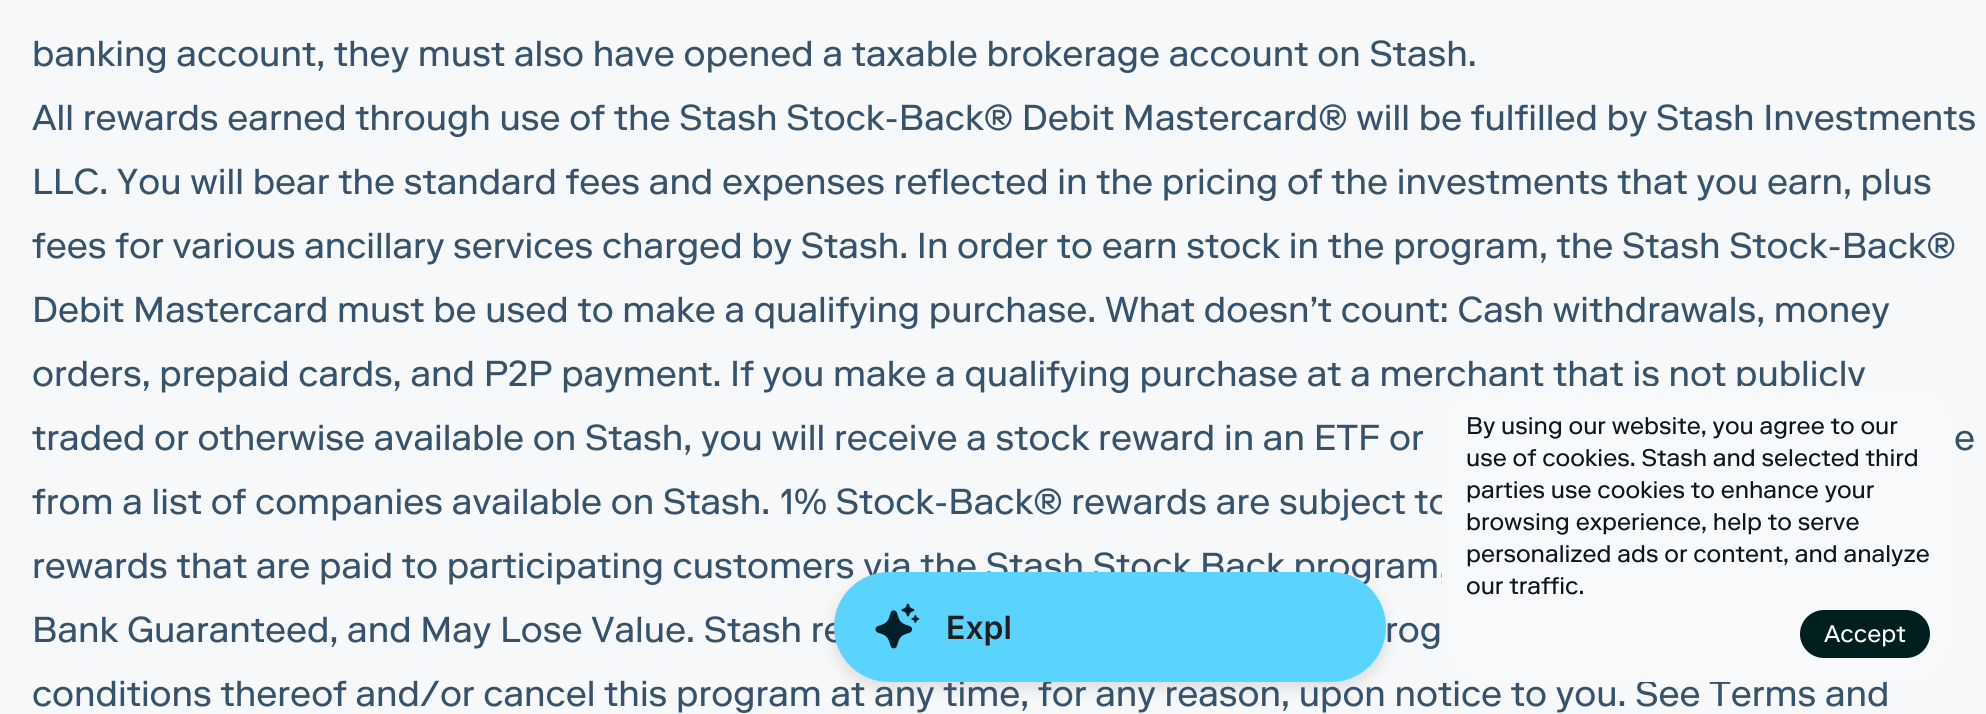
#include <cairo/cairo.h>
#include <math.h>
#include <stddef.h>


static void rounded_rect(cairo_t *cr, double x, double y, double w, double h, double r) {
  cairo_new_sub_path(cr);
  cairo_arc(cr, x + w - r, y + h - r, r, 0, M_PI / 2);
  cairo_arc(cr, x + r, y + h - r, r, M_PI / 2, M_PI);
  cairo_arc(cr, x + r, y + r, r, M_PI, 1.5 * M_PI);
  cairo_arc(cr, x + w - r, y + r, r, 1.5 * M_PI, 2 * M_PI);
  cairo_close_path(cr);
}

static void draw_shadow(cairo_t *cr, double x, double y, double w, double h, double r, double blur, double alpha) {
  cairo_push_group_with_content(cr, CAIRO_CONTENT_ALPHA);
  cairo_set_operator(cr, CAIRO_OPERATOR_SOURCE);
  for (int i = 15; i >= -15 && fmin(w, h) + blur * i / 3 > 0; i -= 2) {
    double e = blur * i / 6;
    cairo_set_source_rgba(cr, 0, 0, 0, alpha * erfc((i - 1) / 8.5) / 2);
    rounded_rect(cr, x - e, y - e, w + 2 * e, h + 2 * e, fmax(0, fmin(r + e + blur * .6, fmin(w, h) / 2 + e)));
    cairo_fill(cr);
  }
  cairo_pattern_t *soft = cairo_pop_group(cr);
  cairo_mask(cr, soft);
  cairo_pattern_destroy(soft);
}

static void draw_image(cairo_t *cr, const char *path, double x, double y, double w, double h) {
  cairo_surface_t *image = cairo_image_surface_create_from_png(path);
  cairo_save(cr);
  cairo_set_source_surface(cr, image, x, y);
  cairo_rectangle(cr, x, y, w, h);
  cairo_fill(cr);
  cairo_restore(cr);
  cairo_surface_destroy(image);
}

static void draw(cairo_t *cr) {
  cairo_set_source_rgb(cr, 246 / 255.0, 248 / 255.0, 250 / 255.0);
  cairo_paint(cr);
  cairo_set_source_rgb(cr, 0, 0, 0);
  draw_shadow(cr, 834, 578, 552, 110, 55, 8, 0.12);
  cairo_select_font_face(cr, "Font", CAIRO_FONT_SLANT_NORMAL, CAIRO_FONT_WEIGHT_NORMAL);
  cairo_set_font_size(cr, 36);
  cairo_set_source_rgb(cr, 55 / 255.0, 83 / 255.0, 108 / 255.0);
  cairo_move_to(cr, 32, 66);
  cairo_show_text(cr, "banking account, they must also have opened a taxable brokerage account on Stash.");
  cairo_move_to(cr, 32, 130);
  cairo_show_text(cr, "All rewards earned through use of the Stash Stock-Back® Debit Mastercard® will be fulfilled by Stash Investments");
  cairo_move_to(cr, 32, 194);
  cairo_show_text(cr, "LLC. You will bear the standard fees and expenses reflected in the pricing of the investments that you earn, plus");
  cairo_move_to(cr, 32, 258);
  cairo_show_text(cr, "fees for various ancillary services charged by Stash. In order to earn stock in the program, the Stash Stock-Back®");
  cairo_move_to(cr, 32, 322);
  cairo_show_text(cr, "Debit Mastercard must be used to make a qualifying purchase. What doesn’t count: Cash withdrawals, money");
  cairo_move_to(cr, 32, 386);
  cairo_show_text(cr, "orders, prepaid cards, and P2P payment. If you make a qualifying purchase at a merchant that is not publicly");
  cairo_move_to(cr, 32, 450);
  cairo_show_text(cr, "traded or otherwise available on Stash, you will receive a stock reward in an ETF or");
  cairo_move_to(cr, 1954, 450);
  cairo_show_text(cr, "e");
  cairo_move_to(cr, 32, 514);
  cairo_show_text(cr, "from a list of companies available on Stash. 1% Stock-Back® rewards are subject to");
  cairo_move_to(cr, 32, 578);
  cairo_show_text(cr, "rewards that are paid to participating customers via the Stash Stock Back program,");
  cairo_move_to(cr, 32, 642);
  cairo_show_text(cr, "Bank Guaranteed, and May Lose Value. Stash re");
  cairo_move_to(cr, 1385, 642);
  cairo_show_text(cr, "rog");
  cairo_move_to(cr, 32, 706);
  cairo_show_text(cr, "conditions thereof and/or cancel this program at any time, for any reason, upon notice to you. See Terms and");
  cairo_set_source_rgb(cr, 90 / 255.0, 212 / 255.0, 1);
  rounded_rect(cr, 834, 572, 552, 110, 55);
  cairo_fill(cr);
  draw_image(cr, "images/1.png", 875, 603, 45, 46);
  cairo_select_font_face(cr, "Inter SemiBold", CAIRO_FONT_SLANT_NORMAL, CAIRO_FONT_WEIGHT_NORMAL);
  cairo_set_font_size(cr, 32);
  cairo_set_source_rgb(cr, 31 / 255.0, 31 / 255.0, 31 / 255.0);
  cairo_move_to(cr, 946, 639);
  cairo_show_text(cr, "Expl");
  cairo_set_source_rgb(cr, 248 / 255.0, 249 / 255.0, 251 / 255.0);
  rounded_rect(cr, 1442, 386, 512, 296, 48);
  cairo_fill(cr);
  cairo_select_font_face(cr, "Font", CAIRO_FONT_SLANT_NORMAL, CAIRO_FONT_WEIGHT_NORMAL);
  cairo_set_font_size(cr, 24);
  cairo_set_source_rgb(cr, 11 / 255.0, 22 / 255.0, 32 / 255.0);
  cairo_move_to(cr, 1466, 434);
  cairo_show_text(cr, "By using our website, you agree to our");
  cairo_move_to(cr, 1466, 466);
  cairo_show_text(cr, "use of cookies. Stash and selected third");
  cairo_move_to(cr, 1466, 498);
  cairo_show_text(cr, "parties use cookies to enhance your");
  cairo_move_to(cr, 1466, 530);
  cairo_show_text(cr, "browsing experience, help to serve");
  cairo_move_to(cr, 1466, 562);
  cairo_show_text(cr, "personalized ads or content, and analyze");
  cairo_move_to(cr, 1466, 594);
  cairo_show_text(cr, "our traffic.");
  cairo_set_source_rgb(cr, 0, 32 / 255.0, 32 / 255.0);
  rounded_rect(cr, 1800, 610, 130, 48, 24);
  cairo_fill(cr);
  cairo_set_source_rgb(cr, 1, 1, 1);
  cairo_move_to(cr, 1824, 642);
  cairo_show_text(cr, "Accept");
}

int main(void) {
  cairo_surface_t *surface = cairo_image_surface_create(CAIRO_FORMAT_RGB24, 1986, 714);
  cairo_t *cr = cairo_create(surface);
  cairo_font_options_t *options = cairo_font_options_create();
  cairo_font_options_set_hint_metrics(options, CAIRO_HINT_METRICS_OFF);
  cairo_font_options_set_hint_style(options, CAIRO_HINT_STYLE_NONE);
  cairo_set_font_options(cr, options);
  cairo_set_miter_limit(cr, 4);
  draw(cr);
  cairo_surface_write_to_png(surface, "out.png");
  cairo_font_options_destroy(options);
  cairo_destroy(cr);
  cairo_surface_destroy(surface);
  return 0;
}
